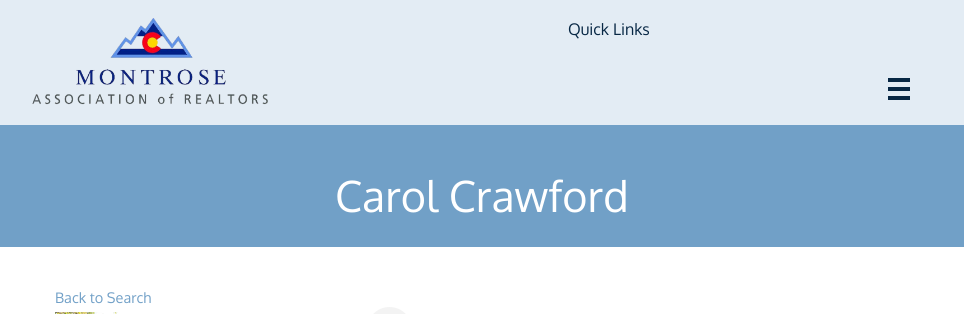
#include <cairo/cairo.h>
#include <math.h>
#include <stddef.h>


static void rounded_rect(cairo_t *cr, double x, double y, double w, double h, double r) {
  cairo_new_sub_path(cr);
  cairo_arc(cr, x + w - r, y + h - r, r, 0, M_PI / 2);
  cairo_arc(cr, x + r, y + h - r, r, M_PI / 2, M_PI);
  cairo_arc(cr, x + r, y + r, r, M_PI, 1.5 * M_PI);
  cairo_arc(cr, x + w - r, y + r, r, 1.5 * M_PI, 2 * M_PI);
  cairo_close_path(cr);
}

static void draw_image(cairo_t *cr, const char *path, double x, double y, double w, double h) {
  cairo_surface_t *image = cairo_image_surface_create_from_png(path);
  cairo_save(cr);
  cairo_set_source_surface(cr, image, x, y);
  cairo_rectangle(cr, x, y, w, h);
  cairo_fill(cr);
  cairo_restore(cr);
  cairo_surface_destroy(image);
}

static void draw(cairo_t *cr) {
  cairo_set_source_rgb(cr, 1, 1, 1);
  cairo_paint(cr);
  cairo_set_source_rgb(cr, 227 / 255.0, 236 / 255.0, 244 / 255.0);
  cairo_rectangle(cr, 0, 0, 964, 125);
  cairo_fill(cr);
  draw_image(cr, "images/1.png", 32, 18, 236, 87);
  cairo_set_source_rgb(cr, 7 / 255.0, 39 / 255.0, 68 / 255.0);
  cairo_rectangle(cr, 888, 78, 22, 4);
  cairo_fill(cr);
  cairo_rectangle(cr, 888, 87, 22, 4);
  cairo_fill(cr);
  cairo_rectangle(cr, 888, 96, 22, 4);
  cairo_fill(cr);
  cairo_set_source_rgb(cr, 113 / 255.0, 160 / 255.0, 199 / 255.0);
  cairo_rectangle(cr, 0, 125, 964, 122);
  cairo_fill(cr);
  draw_image(cr, "images/2.png", 55, 312, 63, 2);
  cairo_set_source_rgb(cr, 243 / 255.0, 243 / 255.0, 243 / 255.0);
  rounded_rect(cr, 367, 307, 45, 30, 22.5);
  cairo_fill(cr);
  cairo_select_font_face(cr, "Oxygen", CAIRO_FONT_SLANT_NORMAL, CAIRO_FONT_WEIGHT_NORMAL);
  cairo_set_font_size(cr, 16);
  cairo_set_source_rgb(cr, 7 / 255.0, 39 / 255.0, 68 / 255.0);
  cairo_move_to(cr, 568, 35);
  cairo_show_text(cr, "Quick Links");
  cairo_set_font_size(cr, 43);
  cairo_set_source_rgb(cr, 1, 1, 1);
  cairo_move_to(cr, 335, 212);
  cairo_show_text(cr, "Carol Crawford");
  cairo_set_font_size(cr, 14.5);
  cairo_set_source_rgb(cr, 113 / 255.0, 160 / 255.0, 199 / 255.0);
  cairo_move_to(cr, 55, 303);
  cairo_show_text(cr, "Back to Search");
}

int main(void) {
  cairo_surface_t *surface = cairo_image_surface_create(CAIRO_FORMAT_RGB24, 964, 314);
  cairo_t *cr = cairo_create(surface);
  cairo_font_options_t *options = cairo_font_options_create();
  cairo_font_options_set_hint_metrics(options, CAIRO_HINT_METRICS_OFF);
  cairo_font_options_set_hint_style(options, CAIRO_HINT_STYLE_NONE);
  cairo_set_font_options(cr, options);
  cairo_set_miter_limit(cr, 4);
  draw(cr);
  cairo_surface_write_to_png(surface, "out.png");
  cairo_font_options_destroy(options);
  cairo_destroy(cr);
  cairo_surface_destroy(surface);
  return 0;
}
